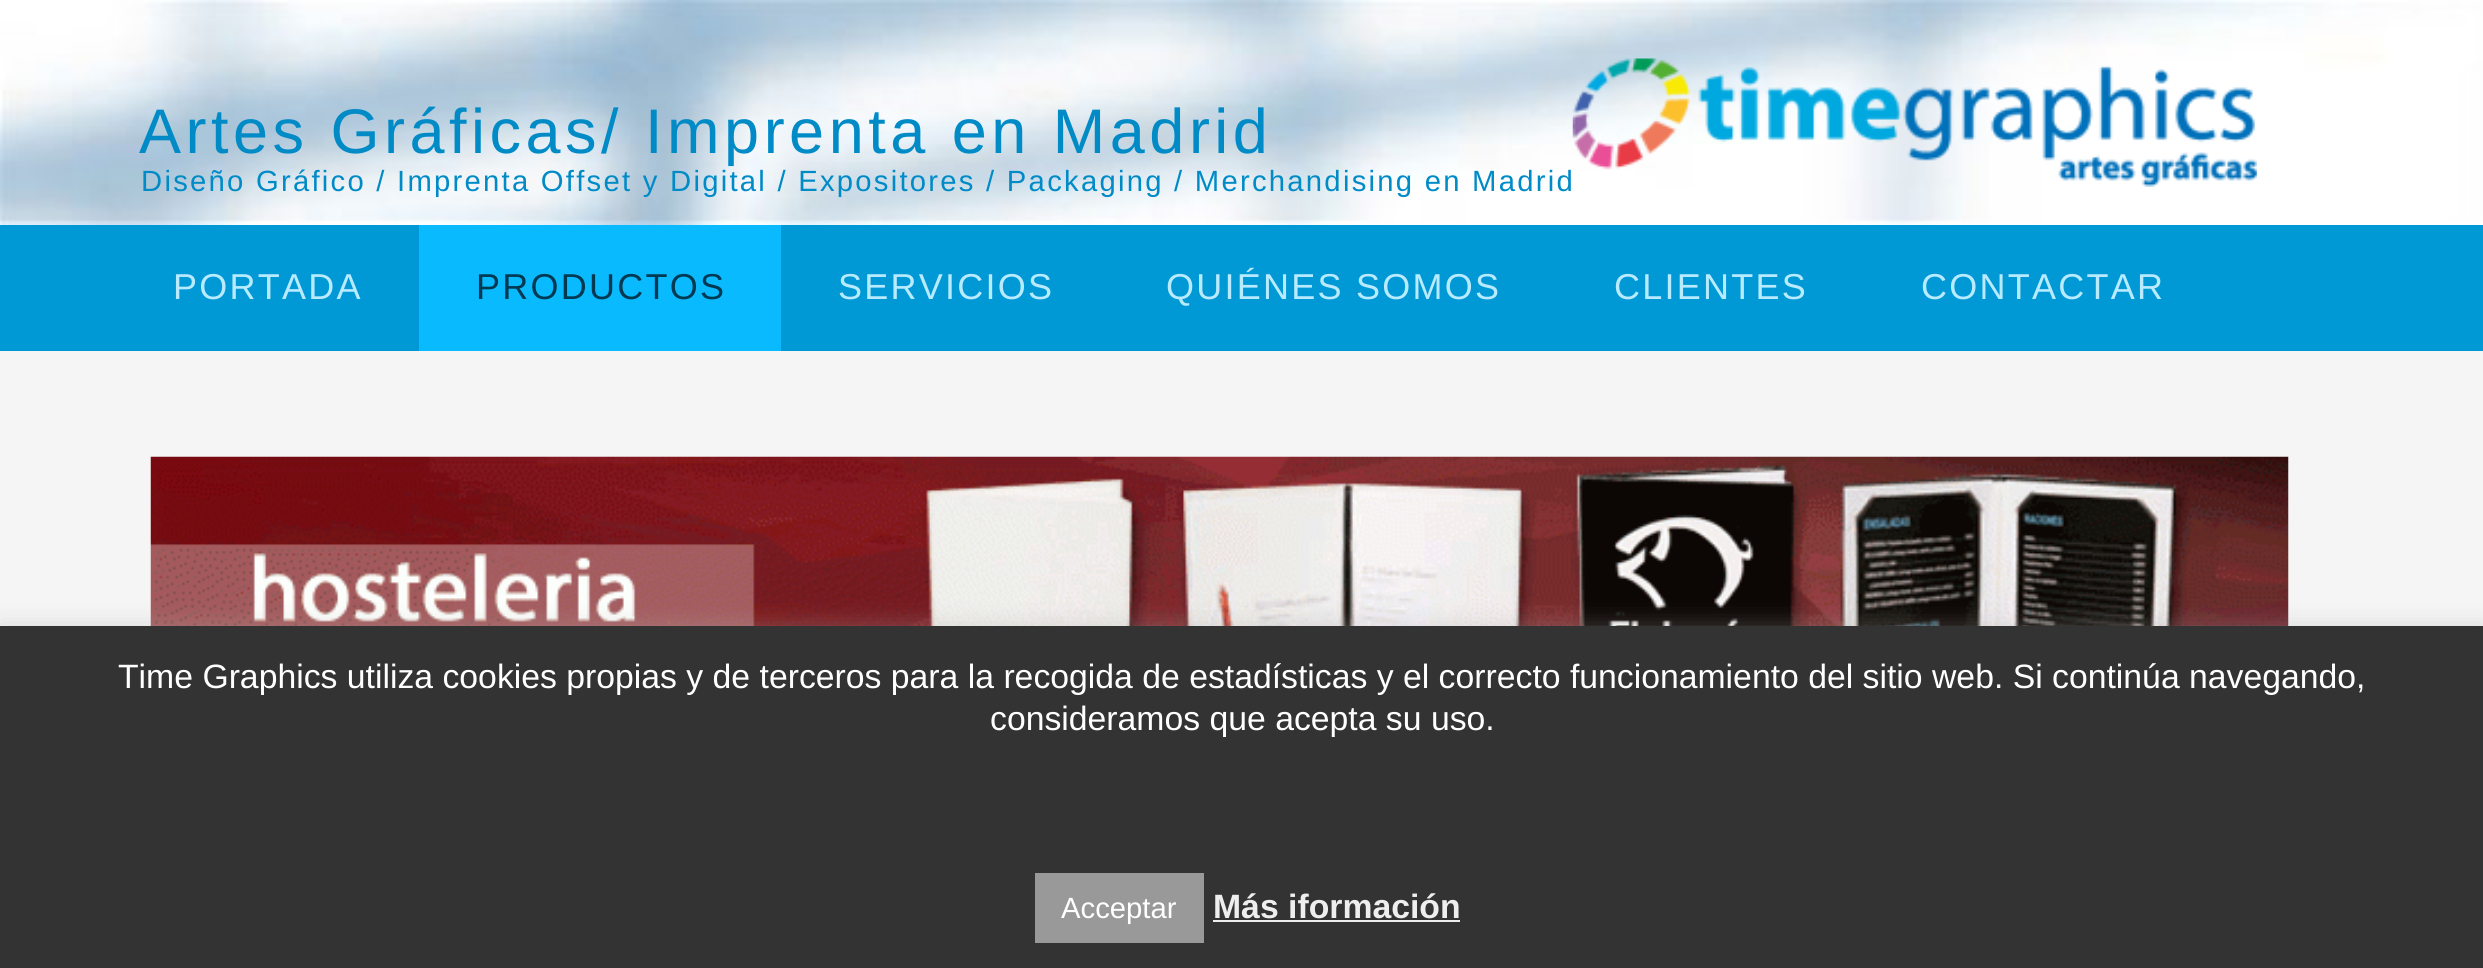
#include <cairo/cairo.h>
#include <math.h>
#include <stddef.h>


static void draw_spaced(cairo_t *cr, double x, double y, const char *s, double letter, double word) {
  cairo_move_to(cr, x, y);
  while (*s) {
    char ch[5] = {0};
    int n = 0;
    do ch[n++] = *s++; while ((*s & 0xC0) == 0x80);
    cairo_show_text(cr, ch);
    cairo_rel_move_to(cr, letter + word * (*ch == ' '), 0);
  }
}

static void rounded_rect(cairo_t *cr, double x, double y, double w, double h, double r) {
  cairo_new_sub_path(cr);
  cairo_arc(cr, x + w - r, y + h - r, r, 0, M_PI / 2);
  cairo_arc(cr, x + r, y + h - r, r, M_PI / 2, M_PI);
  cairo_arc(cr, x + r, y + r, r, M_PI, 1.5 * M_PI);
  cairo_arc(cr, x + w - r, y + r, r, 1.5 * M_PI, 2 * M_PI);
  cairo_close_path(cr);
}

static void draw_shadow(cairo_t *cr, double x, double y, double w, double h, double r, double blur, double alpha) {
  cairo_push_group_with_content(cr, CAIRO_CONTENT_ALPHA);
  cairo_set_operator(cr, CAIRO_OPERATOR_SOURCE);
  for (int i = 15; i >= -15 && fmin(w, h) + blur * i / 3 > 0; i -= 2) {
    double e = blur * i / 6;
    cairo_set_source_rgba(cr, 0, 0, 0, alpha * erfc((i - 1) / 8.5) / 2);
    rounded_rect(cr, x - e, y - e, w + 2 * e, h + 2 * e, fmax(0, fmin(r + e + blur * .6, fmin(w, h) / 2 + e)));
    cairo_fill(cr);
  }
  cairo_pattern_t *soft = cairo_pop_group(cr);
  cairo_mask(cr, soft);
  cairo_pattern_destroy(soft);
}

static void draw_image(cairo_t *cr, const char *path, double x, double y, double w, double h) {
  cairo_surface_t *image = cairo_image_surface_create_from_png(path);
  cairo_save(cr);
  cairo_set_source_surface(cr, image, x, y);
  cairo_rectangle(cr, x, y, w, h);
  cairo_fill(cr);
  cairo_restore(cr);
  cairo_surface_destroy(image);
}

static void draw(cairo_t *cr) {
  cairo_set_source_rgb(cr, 245 / 255.0, 245 / 255.0, 245 / 255.0);
  cairo_paint(cr);
  draw_image(cr, "images/1.png", 0, 0, 2483, 225);
  draw_image(cr, "images/2.png", 1572, 58, 685, 129);
  cairo_set_source_rgb(cr, 0, 153 / 255.0, 213 / 255.0);
  cairo_rectangle(cr, 0, 225, 2483, 126);
  cairo_fill(cr);
  cairo_set_source_rgb(cr, 10 / 255.0, 186 / 255.0, 1);
  cairo_rectangle(cr, 419, 225, 362, 126);
  cairo_fill(cr);
  draw_image(cr, "images/3.png", 150, 456, 2139, 170);
  cairo_set_source_rgb(cr, 172 / 255.0, 171 / 255.0, 171 / 255.0);
  draw_shadow(cr, 0, 623, 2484, 345, 0, 11, 0.3);
  cairo_set_source_rgb(cr, 51 / 255.0, 51 / 255.0, 51 / 255.0);
  cairo_rectangle(cr, 0, 626, 2483, 342);
  cairo_fill(cr);
  cairo_set_source_rgb(cr, 153 / 255.0, 153 / 255.0, 153 / 255.0);
  cairo_rectangle(cr, 1035, 873, 169, 70);
  cairo_fill(cr);
  cairo_set_source_rgb(cr, 238 / 255.0, 238 / 255.0, 238 / 255.0);
  cairo_rectangle(cr, 1213, 920, 247, 2);
  cairo_fill(cr);
  cairo_select_font_face(cr, "Liberation Sans", CAIRO_FONT_SLANT_NORMAL, CAIRO_FONT_WEIGHT_NORMAL);
  cairo_set_font_size(cr, 63);
  cairo_set_source_rgb(cr, 0, 139 / 255.0, 199 / 255.0);
  draw_spaced(cr, 139, 153, "Artes Gráficas/ Imprenta en Madrid", 4.5, 0);
  cairo_set_font_size(cr, 29.25);
  draw_spaced(cr, 141, 191, "Diseño Gráfico / Imprenta Offset y Digital / Expositores / Packaging / Merchandising en Madrid", 2.25, 0);
  cairo_set_font_size(cr, 36);
  cairo_set_source_rgb(cr, 184 / 255.0, 235 / 255.0, 1);
  draw_spaced(cr, 173, 299, "PORTADA", 2.25, 0);
  cairo_set_source_rgb(cr, 0, 57 / 255.0, 82 / 255.0);
  draw_spaced(cr, 476, 299, "PRODUCTOS", 2.25, 0);
  cairo_set_source_rgb(cr, 184 / 255.0, 235 / 255.0, 1);
  draw_spaced(cr, 838, 299, "SERVICIOS", 2.25, 0);
  draw_spaced(cr, 1166, 299, "QUIÉNES SOMOS", 2.25, 0);
  draw_spaced(cr, 1614, 299, "CLIENTES", 2.25, 0);
  draw_spaced(cr, 1921, 299, "CONTACTAR", 2.25, 0);
  cairo_set_font_size(cr, 33.75);
  cairo_set_source_rgb(cr, 1, 1, 1);
  cairo_move_to(cr, 118, 688);
  cairo_show_text(cr, "Time Graphics utiliza cookies propias y de terceros para la recogida de estadísticas y el correcto funcionamiento del sitio web. Si continúa navegando,");
  cairo_move_to(cr, 990, 730);
  cairo_show_text(cr, "consideramos que acepta su uso.");
  cairo_set_font_size(cr, 29.25);
  cairo_move_to(cr, 1061, 918);
  cairo_show_text(cr, "Acceptar");
  cairo_select_font_face(cr, "Liberation Sans", CAIRO_FONT_SLANT_NORMAL, CAIRO_FONT_WEIGHT_BOLD);
  cairo_set_font_size(cr, 33.75);
  cairo_set_source_rgb(cr, 238 / 255.0, 238 / 255.0, 238 / 255.0);
  cairo_move_to(cr, 1213, 918);
  cairo_show_text(cr, "Más iformación");
}

int main(void) {
  cairo_surface_t *surface = cairo_image_surface_create(CAIRO_FORMAT_RGB24, 2483, 968);
  cairo_t *cr = cairo_create(surface);
  cairo_font_options_t *options = cairo_font_options_create();
  cairo_font_options_set_hint_metrics(options, CAIRO_HINT_METRICS_OFF);
  cairo_font_options_set_hint_style(options, CAIRO_HINT_STYLE_NONE);
  cairo_set_font_options(cr, options);
  cairo_set_miter_limit(cr, 4);
  draw(cr);
  cairo_surface_write_to_png(surface, "out.png");
  cairo_font_options_destroy(options);
  cairo_destroy(cr);
  cairo_surface_destroy(surface);
  return 0;
}
